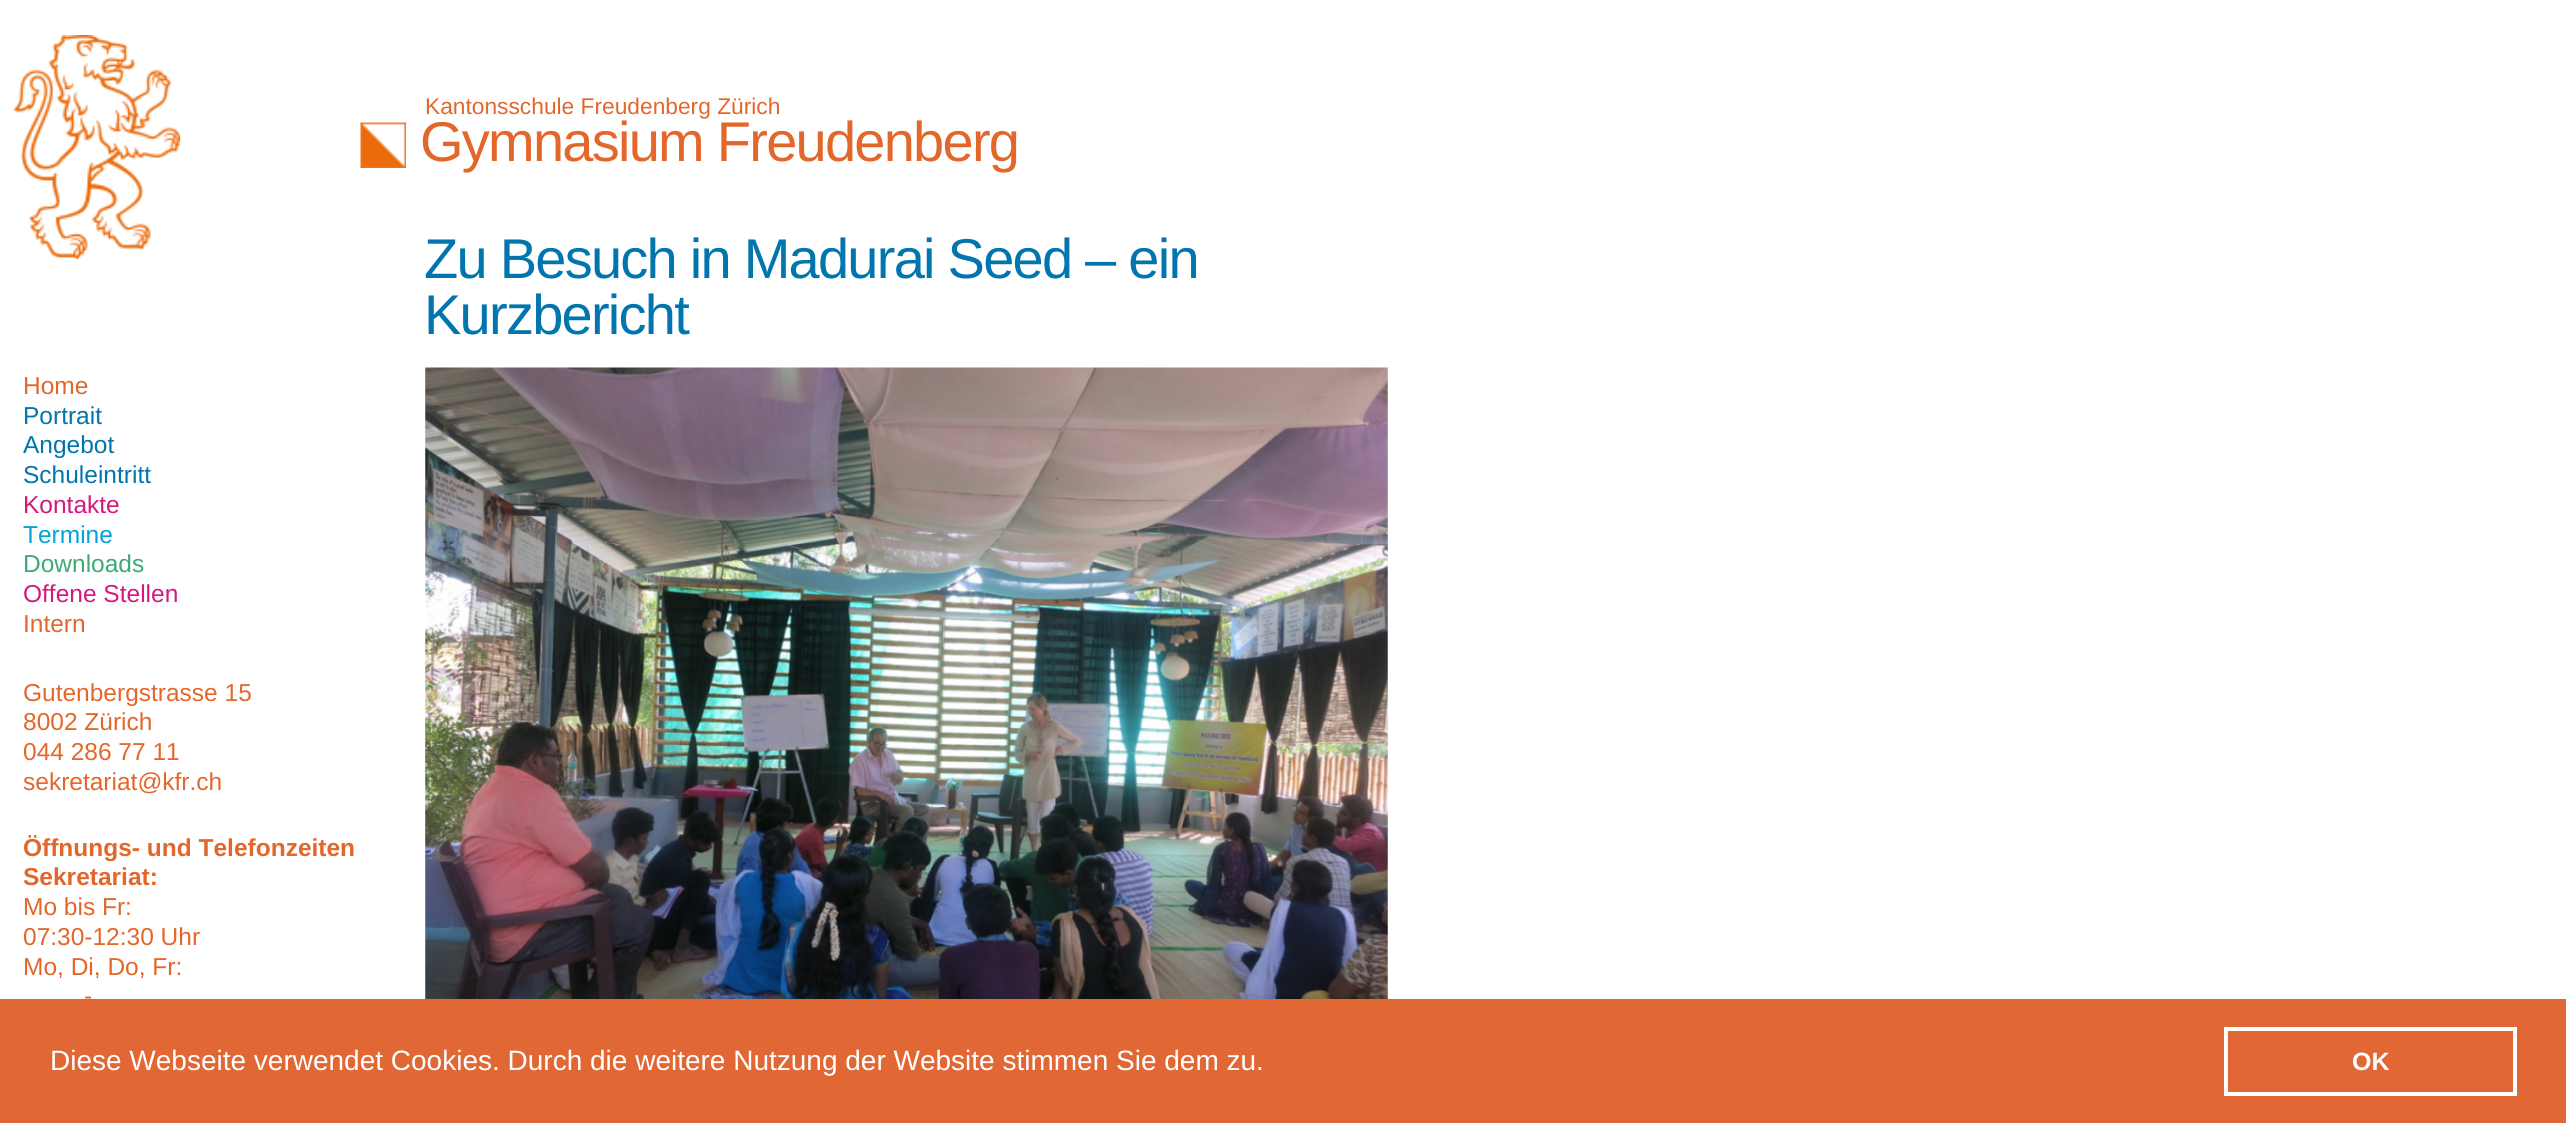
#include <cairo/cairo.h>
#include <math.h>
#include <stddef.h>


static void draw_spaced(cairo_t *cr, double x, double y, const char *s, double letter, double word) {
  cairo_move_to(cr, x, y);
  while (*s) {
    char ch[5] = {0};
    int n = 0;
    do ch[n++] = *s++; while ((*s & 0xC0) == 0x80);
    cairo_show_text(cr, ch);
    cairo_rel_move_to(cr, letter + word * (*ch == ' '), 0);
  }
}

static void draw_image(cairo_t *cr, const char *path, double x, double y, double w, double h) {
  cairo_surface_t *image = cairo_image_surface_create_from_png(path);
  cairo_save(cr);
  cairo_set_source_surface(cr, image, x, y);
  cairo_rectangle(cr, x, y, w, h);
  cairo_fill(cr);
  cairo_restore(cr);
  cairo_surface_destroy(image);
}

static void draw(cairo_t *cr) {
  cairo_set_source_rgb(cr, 1, 1, 1);
  cairo_paint(cr);
  draw_image(cr, "images/1.png", 14, 35, 167, 224);
  draw_image(cr, "images/2.png", 360, 122, 46, 46);
  draw_image(cr, "images/3.png", 425, 367, 963, 632);
  cairo_set_source_rgb(cr, 225 / 255.0, 103 / 255.0, 52 / 255.0);
  cairo_rectangle(cr, 0, 999, 2566, 124);
  cairo_fill(cr);
  cairo_rectangle(cr, 2226, 1029, 289, 65);
  cairo_set_source_rgb(cr, 1, 1, 1);
  cairo_set_line_width(cr, 4);
  cairo_stroke(cr);
  cairo_select_font_face(cr, "Liberation Sans", CAIRO_FONT_SLANT_NORMAL, CAIRO_FONT_WEIGHT_NORMAL);
  cairo_set_font_size(cr, 22.75);
  cairo_set_source_rgb(cr, 227 / 255.0, 103 / 255.0, 42 / 255.0);
  cairo_move_to(cr, 425, 114);
  cairo_show_text(cr, "Kantonsschule Freudenberg Zürich");
  cairo_set_font_size(cr, 56);
  draw_spaced(cr, 420, 161, "Gymnasium Freudenberg", -1.75, 0);
  cairo_set_source_rgb(cr, 0, 117 / 255.0, 174 / 255.0);
  draw_spaced(cr, 424, 278, "Zu Besuch in Madurai Seed – ein", -1.75, 0);
  draw_spaced(cr, 424, 334, "Kurzbericht", -1.75, 0);
  cairo_set_font_size(cr, 24.5);
  cairo_set_source_rgb(cr, 227 / 255.0, 103 / 255.0, 42 / 255.0);
  cairo_move_to(cr, 23, 394);
  cairo_show_text(cr, "Home");
  cairo_set_source_rgb(cr, 0, 117 / 255.0, 174 / 255.0);
  cairo_move_to(cr, 23, 424);
  cairo_show_text(cr, "Portrait");
  cairo_move_to(cr, 23, 453);
  cairo_show_text(cr, "Angebot");
  cairo_move_to(cr, 23, 483);
  cairo_show_text(cr, "Schuleintritt");
  cairo_set_source_rgb(cr, 212 / 255.0, 24 / 255.0, 125 / 255.0);
  cairo_move_to(cr, 23, 513);
  cairo_show_text(cr, "Kontakte");
  cairo_set_source_rgb(cr, 0, 164 / 255.0, 216 / 255.0);
  cairo_move_to(cr, 23, 543);
  cairo_show_text(cr, "Termine");
  cairo_set_source_rgb(cr, 61 / 255.0, 170 / 255.0, 116 / 255.0);
  cairo_move_to(cr, 23, 572);
  cairo_show_text(cr, "Downloads");
  cairo_set_source_rgb(cr, 212 / 255.0, 24 / 255.0, 125 / 255.0);
  cairo_move_to(cr, 23, 602);
  cairo_show_text(cr, "Offene Stellen");
  cairo_set_source_rgb(cr, 227 / 255.0, 103 / 255.0, 42 / 255.0);
  cairo_move_to(cr, 23, 632);
  cairo_show_text(cr, "Intern");
  cairo_move_to(cr, 23, 701);
  cairo_show_text(cr, "Gutenbergstrasse 15");
  cairo_move_to(cr, 23, 730);
  cairo_show_text(cr, "8002 Zürich");
  cairo_move_to(cr, 23, 760);
  cairo_show_text(cr, "044 286 77 11");
  cairo_move_to(cr, 23, 790);
  cairo_show_text(cr, "sekretariat@kfr.ch");
  cairo_select_font_face(cr, "Liberation Sans", CAIRO_FONT_SLANT_NORMAL, CAIRO_FONT_WEIGHT_BOLD);
  cairo_move_to(cr, 23, 856);
  cairo_show_text(cr, "Öffnungs- und Telefonzeiten");
  cairo_move_to(cr, 23, 885);
  cairo_show_text(cr, "Sekretariat:");
  cairo_select_font_face(cr, "Liberation Sans", CAIRO_FONT_SLANT_NORMAL, CAIRO_FONT_WEIGHT_NORMAL);
  cairo_move_to(cr, 23, 915);
  cairo_show_text(cr, "Mo bis Fr:");
  cairo_move_to(cr, 23, 945);
  cairo_show_text(cr, "07:30-12:30 Uhr");
  cairo_move_to(cr, 23, 975);
  cairo_show_text(cr, "Mo, Di, Do, Fr:");
  cairo_move_to(cr, 84, 1004);
  cairo_show_text(cr, "-");
  cairo_set_font_size(cr, 28);
  cairo_set_source_rgb(cr, 1, 1, 1);
  cairo_move_to(cr, 50, 1070);
  cairo_show_text(cr, "Diese Webseite verwendet Cookies. Durch die weitere Nutzung der Website stimmen Sie dem zu.");
  cairo_select_font_face(cr, "Liberation Sans", CAIRO_FONT_SLANT_NORMAL, CAIRO_FONT_WEIGHT_BOLD);
  cairo_set_font_size(cr, 25);
  cairo_move_to(cr, 2352, 1070);
  cairo_show_text(cr, "OK");
}

int main(void) {
  cairo_surface_t *surface = cairo_image_surface_create(CAIRO_FORMAT_RGB24, 2566, 1123);
  cairo_t *cr = cairo_create(surface);
  cairo_font_options_t *options = cairo_font_options_create();
  cairo_font_options_set_hint_metrics(options, CAIRO_HINT_METRICS_OFF);
  cairo_font_options_set_hint_style(options, CAIRO_HINT_STYLE_NONE);
  cairo_set_font_options(cr, options);
  cairo_set_miter_limit(cr, 4);
  draw(cr);
  cairo_surface_write_to_png(surface, "out.png");
  cairo_font_options_destroy(options);
  cairo_destroy(cr);
  cairo_surface_destroy(surface);
  return 0;
}
